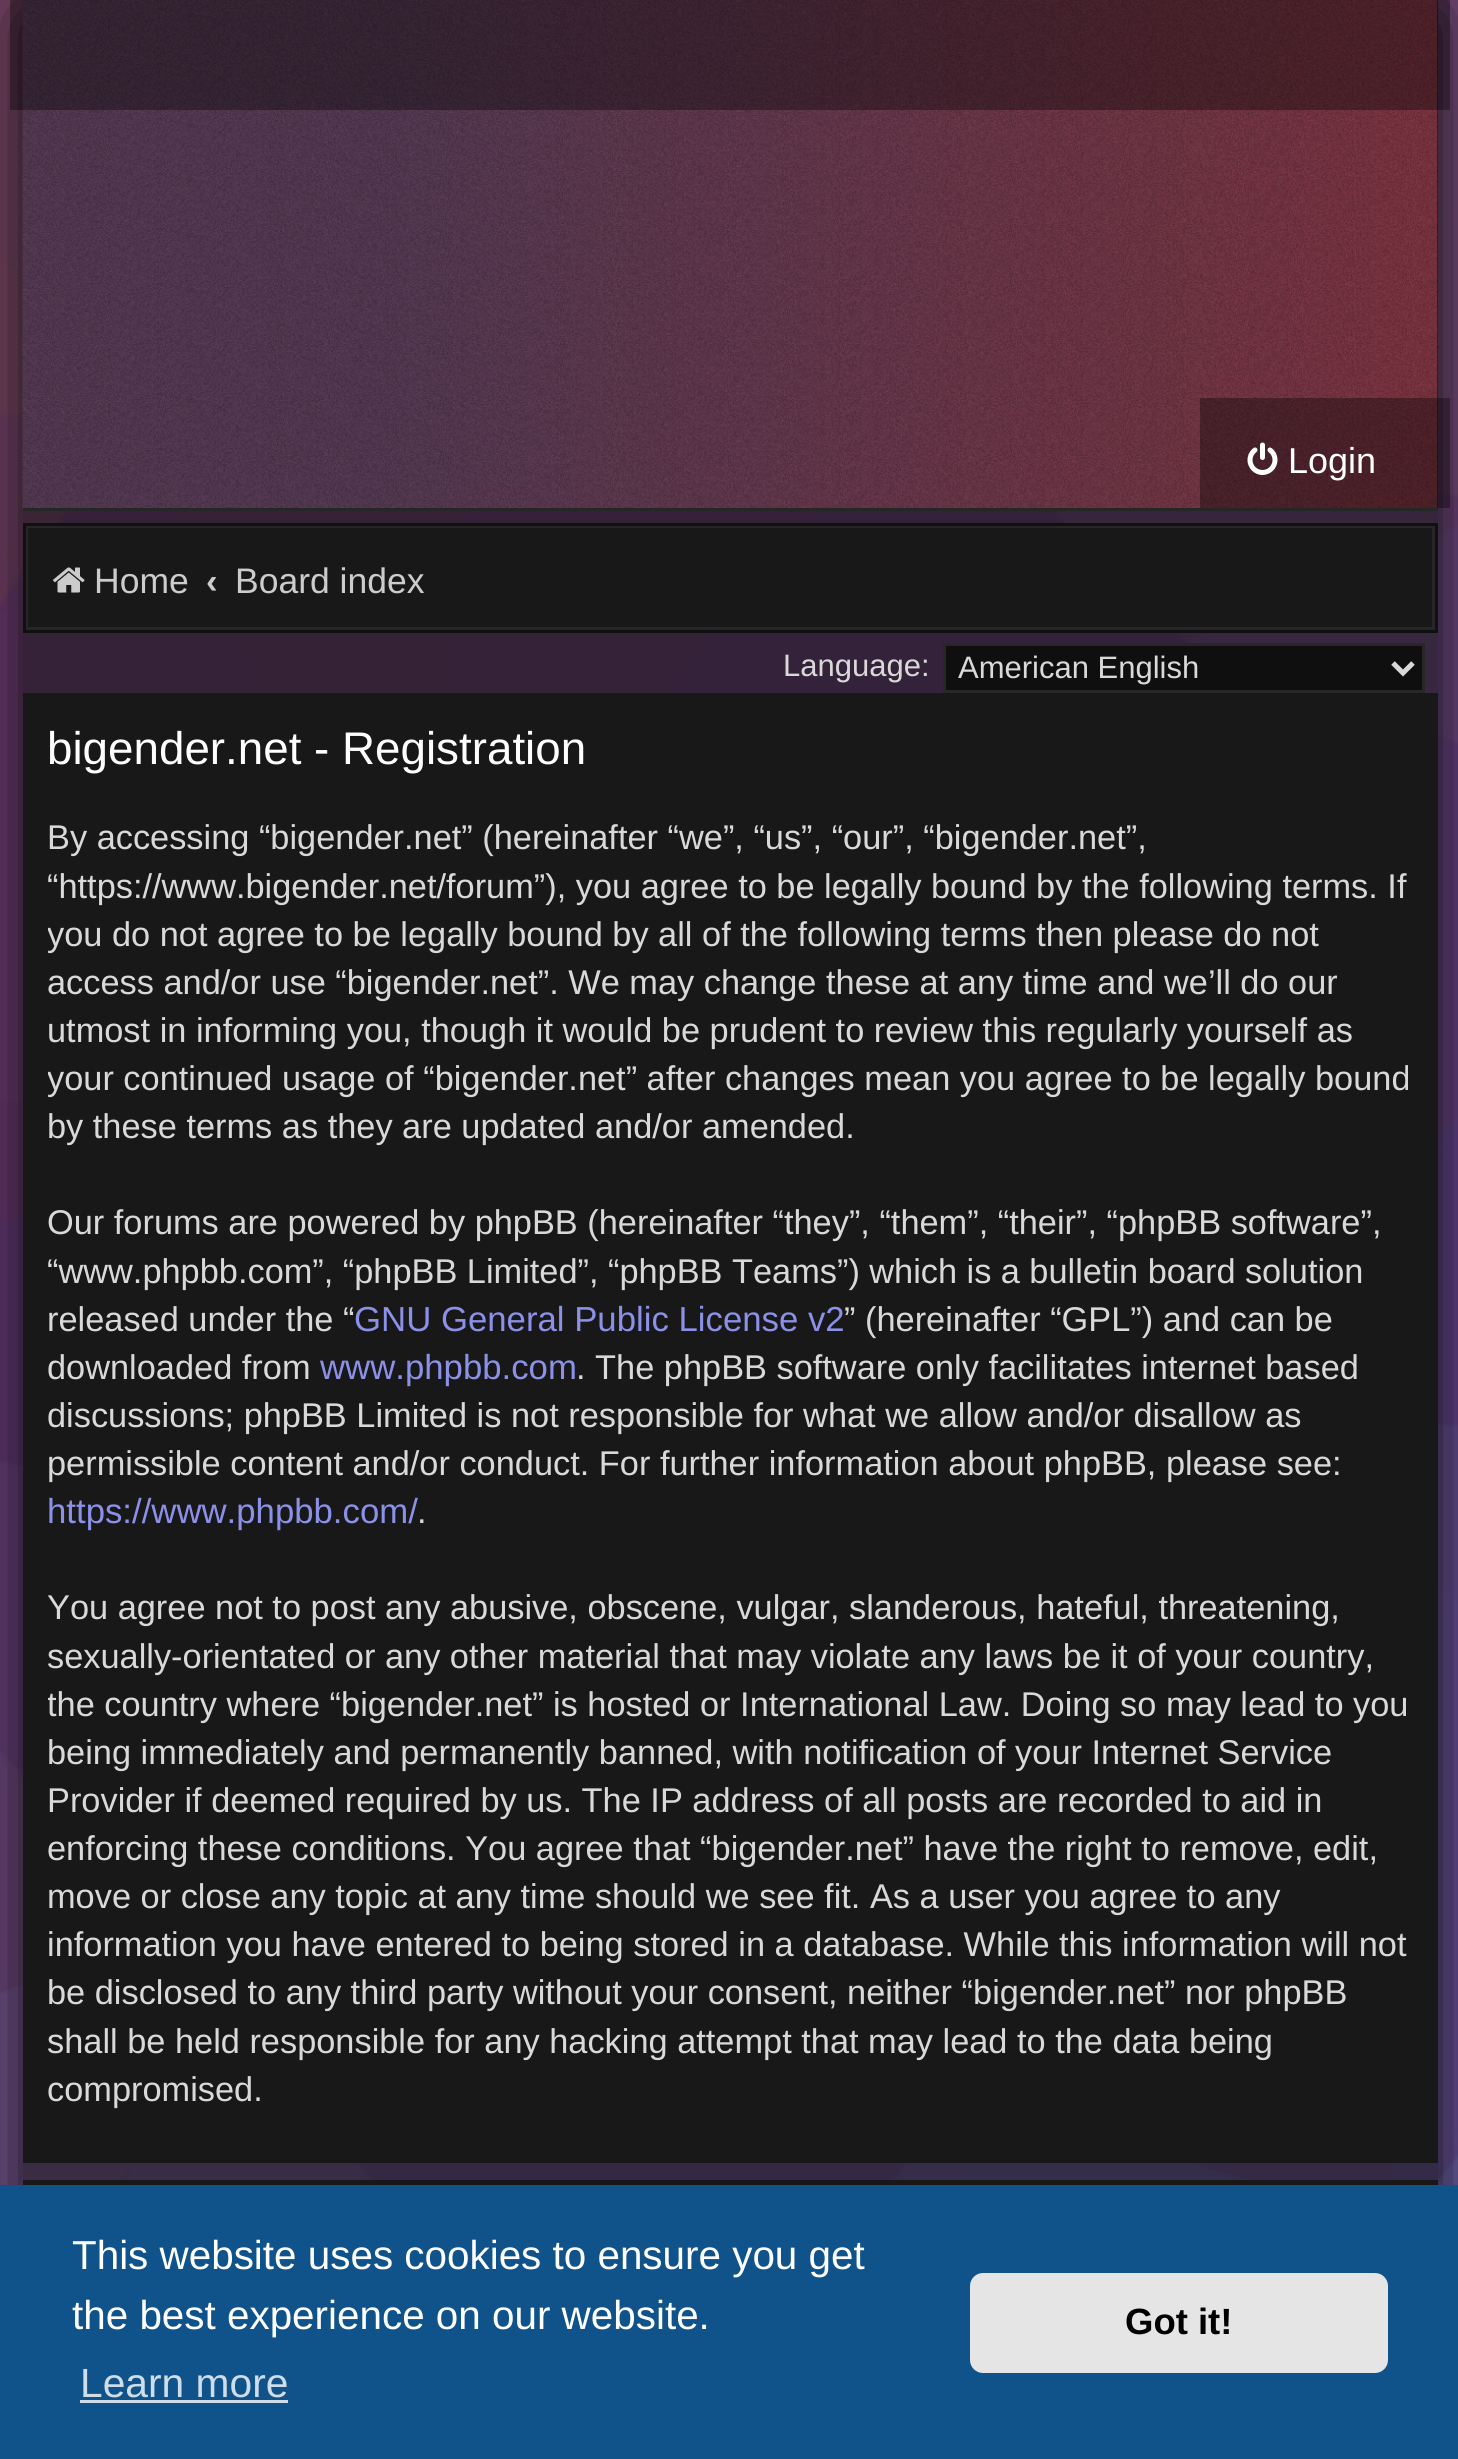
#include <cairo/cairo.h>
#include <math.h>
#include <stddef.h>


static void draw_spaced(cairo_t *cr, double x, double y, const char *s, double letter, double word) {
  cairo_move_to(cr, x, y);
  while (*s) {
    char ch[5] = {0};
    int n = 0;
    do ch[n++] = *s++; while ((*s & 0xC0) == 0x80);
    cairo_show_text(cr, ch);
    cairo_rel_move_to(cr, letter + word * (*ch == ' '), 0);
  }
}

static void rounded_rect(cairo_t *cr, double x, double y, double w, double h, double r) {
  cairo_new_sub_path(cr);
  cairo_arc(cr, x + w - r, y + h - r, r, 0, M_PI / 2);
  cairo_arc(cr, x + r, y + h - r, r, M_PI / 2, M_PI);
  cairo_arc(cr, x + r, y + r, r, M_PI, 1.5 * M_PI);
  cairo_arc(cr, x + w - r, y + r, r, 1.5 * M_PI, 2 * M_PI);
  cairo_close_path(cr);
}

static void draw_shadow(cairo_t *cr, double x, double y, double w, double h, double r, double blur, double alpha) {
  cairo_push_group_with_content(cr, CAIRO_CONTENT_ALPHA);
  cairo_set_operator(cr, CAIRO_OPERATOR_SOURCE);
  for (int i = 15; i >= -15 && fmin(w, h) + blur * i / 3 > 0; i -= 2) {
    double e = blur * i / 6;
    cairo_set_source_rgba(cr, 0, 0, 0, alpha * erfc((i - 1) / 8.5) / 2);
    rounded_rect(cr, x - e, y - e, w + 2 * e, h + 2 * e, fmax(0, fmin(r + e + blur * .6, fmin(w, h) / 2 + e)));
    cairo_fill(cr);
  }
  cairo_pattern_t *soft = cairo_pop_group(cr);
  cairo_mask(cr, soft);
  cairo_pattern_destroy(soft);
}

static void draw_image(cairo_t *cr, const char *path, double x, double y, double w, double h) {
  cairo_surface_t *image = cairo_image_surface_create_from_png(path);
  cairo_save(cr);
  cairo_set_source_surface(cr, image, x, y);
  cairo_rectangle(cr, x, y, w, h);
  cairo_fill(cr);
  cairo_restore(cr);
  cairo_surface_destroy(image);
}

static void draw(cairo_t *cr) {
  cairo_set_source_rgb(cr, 1, 1, 1);
  cairo_paint(cr);
  draw_image(cr, "images/1.png", 0, 0, 1458, 2185);
  cairo_save(cr);
  cairo_set_fill_rule(cr, CAIRO_FILL_RULE_EVEN_ODD);
  cairo_new_path(cr);
  cairo_move_to(cr, 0, 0);
  cairo_line_to(cr, 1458, 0);
  cairo_line_to(cr, 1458, 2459);
  cairo_line_to(cr, 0, 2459);
  cairo_close_path(cr);
  cairo_move_to(cr, 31, 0);
  cairo_line_to(cr, 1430, 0);
  cairo_curve_to(cr, 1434.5, 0, 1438, 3.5, 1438, 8);
  cairo_line_to(cr, 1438, 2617);
  cairo_curve_to(cr, 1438, 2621.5, 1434.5, 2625, 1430, 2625);
  cairo_line_to(cr, 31, 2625);
  cairo_curve_to(cr, 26.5, 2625, 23, 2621.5, 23, 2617);
  cairo_line_to(cr, 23, 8);
  cairo_curve_to(cr, 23, 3.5, 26.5, 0, 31, 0);
  cairo_close_path(cr);
  cairo_clip(cr);
  cairo_set_source_rgb(cr, 13 / 255.0, 13 / 255.0, 13 / 255.0);
  draw_shadow(cr, 23, 13, 1415, 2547, 8, 31, 1);
  cairo_restore(cr);
  cairo_set_source_rgba(cr, 21 / 255.0, 21 / 255.0, 21 / 255.0, 0.6);
  cairo_rectangle(cr, 23, 511, 1415, 1669);
  cairo_fill(cr);
  cairo_set_source_rgb(cr, 0, 0, 0);
  cairo_rectangle(cr, 1437, 0, 1, 508);
  cairo_fill(cr);
  draw_image(cr, "images/2.png", 22, 0, 1416, 510);
  cairo_set_source_rgb(cr, 38 / 255.0, 38 / 255.0, 38 / 255.0);
  cairo_rectangle(cr, 23, 508, 1415, 3);
  cairo_fill(cr);
  cairo_set_source_rgba(cr, 0, 0, 0, 0.35);
  cairo_rectangle(cr, 10, 0, 1440, 110);
  cairo_fill(cr);
  cairo_rectangle(cr, 1200, 398, 250, 110);
  cairo_fill(cr);
  draw_image(cr, "images/3.png", 1247, 442, 31, 33);
  cairo_set_source_rgb(cr, 24 / 255.0, 24 / 255.0, 24 / 255.0);
  cairo_rectangle(cr, 26.5, 526.5, 1407, 102);
  cairo_fill_preserve(cr);
  cairo_set_source_rgb(cr, 38 / 255.0, 38 / 255.0, 38 / 255.0);
  cairo_set_line_width(cr, 3);
  cairo_stroke(cr);
  cairo_rectangle(cr, 24.5, 524.5, 1412, 107);
  cairo_set_source_rgb(cr, 16 / 255.0, 16 / 255.0, 16 / 255.0);
  cairo_stroke(cr);
  draw_image(cr, "images/4.png", 53, 567, 32, 26);
  cairo_set_source_rgb(cr, 15 / 255.0, 15 / 255.0, 15 / 255.0);
  cairo_rectangle(cr, 944.5, 644.5, 479, 47);
  cairo_fill_preserve(cr);
  cairo_set_source_rgb(cr, 39 / 255.0, 39 / 255.0, 39 / 255.0);
  cairo_stroke(cr);
  cairo_new_path(cr);
  cairo_move_to(cr, 1393, 663);
  cairo_line_to(cr, 1403, 673);
  cairo_line_to(cr, 1413, 663);
  cairo_set_source_rgb(cr, 217 / 255.0, 217 / 255.0, 217 / 255.0);
  cairo_set_line_width(cr, 5);
  cairo_stroke(cr);
  cairo_set_source_rgb(cr, 24 / 255.0, 24 / 255.0, 24 / 255.0);
  cairo_rectangle(cr, 23, 693, 1415, 1470);
  cairo_fill(cr);
  cairo_rectangle(cr, 23, 2180, 1415, 5);
  cairo_fill(cr);
  cairo_set_source_rgb(cr, 15 / 255.0, 83 / 255.0, 138 / 255.0);
  cairo_rectangle(cr, 0, 2185, 1458, 274);
  cairo_fill(cr);
  cairo_set_source_rgb(cr, 207 / 255.0, 221 / 255.0, 232 / 255.0);
  cairo_rectangle(cr, 80, 2400, 208, 3);
  cairo_fill(cr);
  cairo_set_source_rgb(cr, 229 / 255.0, 229 / 255.0, 229 / 255.0);
  rounded_rect(cr, 970, 2273, 418, 100, 13);
  cairo_fill(cr);
  cairo_select_font_face(cr, "Liberation Sans", CAIRO_FONT_SLANT_NORMAL, CAIRO_FONT_WEIGHT_NORMAL);
  cairo_set_font_size(cr, 36);
  cairo_set_source_rgb(cr, 1, 1, 1);
  cairo_move_to(cr, 1288, 473);
  cairo_show_text(cr, "Login");
  cairo_set_font_size(cr, 35.5);
  cairo_set_source_rgb(cr, 204 / 255.0, 204 / 255.0, 204 / 255.0);
  cairo_move_to(cr, 94, 593);
  cairo_show_text(cr, "Home");
  cairo_select_font_face(cr, "Liberation Sans", CAIRO_FONT_SLANT_NORMAL, CAIRO_FONT_WEIGHT_BOLD);
  cairo_set_font_size(cr, 34.75);
  cairo_move_to(cr, 206, 593);
  cairo_show_text(cr, "‹");
  cairo_select_font_face(cr, "Liberation Sans", CAIRO_FONT_SLANT_NORMAL, CAIRO_FONT_WEIGHT_NORMAL);
  cairo_set_font_size(cr, 35.5);
  cairo_move_to(cr, 235, 593);
  cairo_show_text(cr, "Board index");
  cairo_set_font_size(cr, 31);
  cairo_set_source_rgb(cr, 217 / 255.0, 217 / 255.0, 217 / 255.0);
  cairo_move_to(cr, 783, 676);
  cairo_show_text(cr, "Language:");
  cairo_move_to(cr, 958, 678);
  cairo_show_text(cr, "American English");
  cairo_set_font_size(cr, 45.75);
  cairo_set_source_rgb(cr, 1, 1, 1);
  cairo_move_to(cr, 47, 764);
  cairo_show_text(cr, "bigender.net - Registration");
  cairo_set_font_size(cr, 34.35);
  cairo_set_source_rgb(cr, 217 / 255.0, 217 / 255.0, 217 / 255.0);
  cairo_move_to(cr, 47, 849);
  cairo_show_text(cr, "By accessing “bigender.net” (hereinafter “we”, “us”, “our”, “bigender.net”,");
  cairo_move_to(cr, 47, 898);
  cairo_show_text(cr, "“https://www.bigender.net/forum”), you agree to be legally bound by the following terms. If");
  cairo_save(cr);
  cairo_rectangle(cr, 48, 815, 1365, 1300);
  cairo_clip(cr);
  cairo_move_to(cr, 47, 946);
  cairo_show_text(cr, "you do not agree to be legally bound by all of the following terms then please do not");
  cairo_restore(cr);
  cairo_move_to(cr, 47, 994);
  cairo_show_text(cr, "access and/or use “bigender.net”. We may change these at any time and we’ll do our");
  cairo_move_to(cr, 47, 1042);
  cairo_show_text(cr, "utmost in informing you, though it would be prudent to review this regularly yourself as");
  cairo_save(cr);
  cairo_rectangle(cr, 48, 815, 1365, 1300);
  cairo_clip(cr);
  cairo_move_to(cr, 47, 1090);
  cairo_show_text(cr, "your continued usage of “bigender.net” after changes mean you agree to be legally bound");
  cairo_restore(cr);
  cairo_move_to(cr, 47, 1138);
  cairo_show_text(cr, "by these terms as they are updated and/or amended.");
  cairo_move_to(cr, 47, 1234);
  cairo_show_text(cr, "Our forums are powered by phpBB (hereinafter “they”, “them”, “their”, “phpBB software”,");
  draw_spaced(cr, 47, 1283, "“www.phpbb.com”, “phpBB Limited”, “phpBB Teams”) which is a bulletin board solution", 0, -0.1);
  cairo_move_to(cr, 47, 1331);
  cairo_show_text(cr, "released under the “");
  cairo_set_font_size(cr, 34.75);
  cairo_set_source_rgb(cr, 139 / 255.0, 145 / 255.0, 232 / 255.0);
  cairo_move_to(cr, 354, 1331);
  cairo_show_text(cr, "GNU General Public License v2");
  cairo_set_font_size(cr, 34.35);
  cairo_set_source_rgb(cr, 217 / 255.0, 217 / 255.0, 217 / 255.0);
  cairo_move_to(cr, 844, 1331);
  cairo_show_text(cr, "” (hereinafter “GPL”) and can be");
  cairo_move_to(cr, 47, 1379);
  cairo_show_text(cr, "downloaded from");
  cairo_set_font_size(cr, 34.75);
  cairo_set_source_rgb(cr, 139 / 255.0, 145 / 255.0, 232 / 255.0);
  cairo_move_to(cr, 320, 1379);
  cairo_show_text(cr, "www.phpbb.com");
  cairo_set_font_size(cr, 34.35);
  cairo_set_source_rgb(cr, 217 / 255.0, 217 / 255.0, 217 / 255.0);
  cairo_move_to(cr, 576, 1379);
  cairo_show_text(cr, ". The phpBB software only facilitates internet based");
  cairo_move_to(cr, 47, 1427);
  cairo_show_text(cr, "discussions; phpBB Limited is not responsible for what we allow and/or disallow as");
  cairo_move_to(cr, 47, 1475);
  cairo_show_text(cr, "permissible content and/or conduct. For further information about phpBB, please see:");
  cairo_set_font_size(cr, 34.75);
  cairo_set_source_rgb(cr, 139 / 255.0, 145 / 255.0, 232 / 255.0);
  cairo_move_to(cr, 47, 1523);
  cairo_show_text(cr, "https://www.phpbb.com/");
  cairo_set_font_size(cr, 34.35);
  cairo_set_source_rgb(cr, 217 / 255.0, 217 / 255.0, 217 / 255.0);
  cairo_move_to(cr, 417, 1523);
  cairo_show_text(cr, ".");
  cairo_move_to(cr, 47, 1619);
  cairo_show_text(cr, "You agree not to post any abusive, obscene, vulgar, slanderous, hateful, threatening,");
  cairo_move_to(cr, 47, 1668);
  cairo_show_text(cr, "sexually-orientated or any other material that may violate any laws be it of your country,");
  cairo_save(cr);
  cairo_rectangle(cr, 48, 815, 1365, 1300);
  cairo_clip(cr);
  cairo_move_to(cr, 47, 1716);
  cairo_show_text(cr, "the country where “bigender.net” is hosted or International Law. Doing so may lead to you");
  cairo_restore(cr);
  cairo_move_to(cr, 47, 1764);
  cairo_show_text(cr, "being immediately and permanently banned, with notification of your Internet Service");
  cairo_move_to(cr, 47, 1812);
  cairo_show_text(cr, "Provider if deemed required by us. The IP address of all posts are recorded to aid in");
  cairo_move_to(cr, 47, 1860);
  cairo_show_text(cr, "enforcing these conditions. You agree that “bigender.net” have the right to remove, edit,");
  cairo_move_to(cr, 47, 1908);
  cairo_show_text(cr, "move or close any topic at any time should we see fit. As a user you agree to any");
  cairo_move_to(cr, 47, 1956);
  cairo_show_text(cr, "information you have entered to being stored in a database. While this information will not");
  cairo_move_to(cr, 47, 2004);
  cairo_show_text(cr, "be disclosed to any third party without your consent, neither “bigender.net” nor phpBB");
  cairo_move_to(cr, 47, 2053);
  cairo_show_text(cr, "shall be held responsible for any hacking attempt that may lead to the data being");
  cairo_move_to(cr, 47, 2101);
  cairo_show_text(cr, "compromised.");
  cairo_set_font_size(cr, 40.4);
  cairo_set_source_rgb(cr, 1, 1, 1);
  cairo_move_to(cr, 72, 2269);
  cairo_show_text(cr, "This website uses cookies to ensure you get");
  cairo_move_to(cr, 72, 2329);
  cairo_show_text(cr, "the best experience on our website.");
  cairo_set_font_size(cr, 40.75);
  cairo_set_source_rgb(cr, 207 / 255.0, 221 / 255.0, 232 / 255.0);
  cairo_move_to(cr, 80, 2397);
  cairo_show_text(cr, "Learn more");
  cairo_select_font_face(cr, "Liberation Sans", CAIRO_FONT_SLANT_NORMAL, CAIRO_FONT_WEIGHT_BOLD);
  cairo_set_font_size(cr, 36.5);
  cairo_set_source_rgb(cr, 0, 0, 0);
  cairo_move_to(cr, 1125, 2334);
  cairo_show_text(cr, "Got it!");
}

int main(void) {
  cairo_surface_t *surface = cairo_image_surface_create(CAIRO_FORMAT_RGB24, 1458, 2459);
  cairo_t *cr = cairo_create(surface);
  cairo_font_options_t *options = cairo_font_options_create();
  cairo_font_options_set_hint_metrics(options, CAIRO_HINT_METRICS_OFF);
  cairo_font_options_set_hint_style(options, CAIRO_HINT_STYLE_NONE);
  cairo_set_font_options(cr, options);
  cairo_set_miter_limit(cr, 4);
  draw(cr);
  cairo_surface_write_to_png(surface, "out.png");
  cairo_font_options_destroy(options);
  cairo_destroy(cr);
  cairo_surface_destroy(surface);
  return 0;
}
